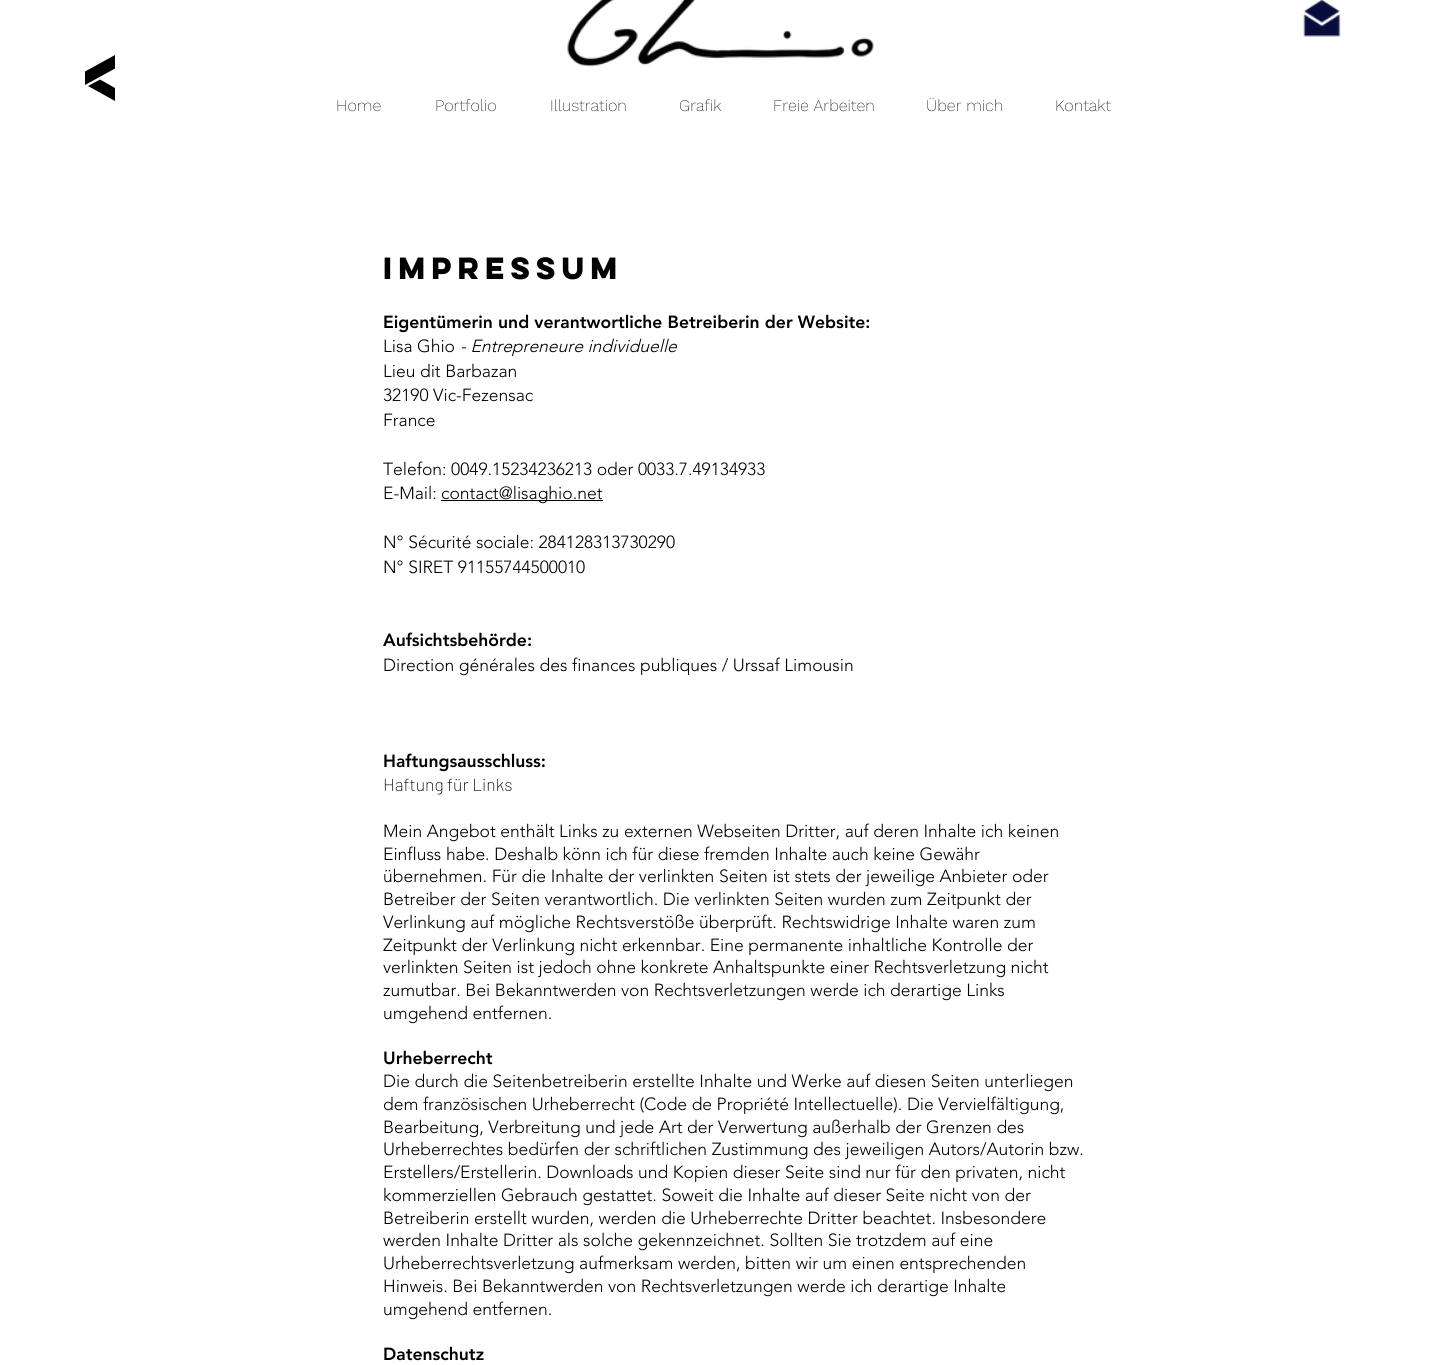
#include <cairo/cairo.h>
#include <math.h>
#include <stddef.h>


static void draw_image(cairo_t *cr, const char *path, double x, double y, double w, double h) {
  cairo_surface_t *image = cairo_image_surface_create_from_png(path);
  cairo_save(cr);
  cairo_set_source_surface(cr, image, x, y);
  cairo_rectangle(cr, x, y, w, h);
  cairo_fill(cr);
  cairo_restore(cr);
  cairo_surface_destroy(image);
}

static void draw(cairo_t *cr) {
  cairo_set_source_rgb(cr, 1, 1, 1);
  cairo_paint(cr);
  draw_image(cr, "images/1.png", 567, 0, 307, 67);
  draw_image(cr, "images/2.png", 1303, 0, 38, 37);
  cairo_set_source_rgb(cr, 0, 0, 0);
  cairo_new_path(cr);
  cairo_move_to(cr, 85, 71.5);
  cairo_line_to(cr, 85, 85);
  cairo_line_to(cr, 115, 68.5);
  cairo_line_to(cr, 115, 55);
  cairo_close_path(cr);
  cairo_fill(cr);
  cairo_new_path(cr);
  cairo_move_to(cr, 115, 101);
  cairo_line_to(cr, 115, 88);
  cairo_line_to(cr, 100, 79.5);
  cairo_line_to(cr, 88, 86);
  cairo_close_path(cr);
  cairo_fill(cr);
  cairo_rectangle(cr, 441, 500, 162, 1);
  cairo_fill(cr);
  cairo_select_font_face(cr, "Work Sans ExtraLight", CAIRO_FONT_SLANT_NORMAL, CAIRO_FONT_WEIGHT_NORMAL);
  cairo_set_font_size(cr, 16.25);
  cairo_move_to(cr, 336, 111);
  cairo_show_text(cr, "Home");
  cairo_move_to(cr, 435, 111);
  cairo_show_text(cr, "Portfolio");
  cairo_move_to(cr, 550, 111);
  cairo_show_text(cr, "Illustration");
  cairo_move_to(cr, 679, 111);
  cairo_show_text(cr, "Grafik");
  cairo_move_to(cr, 773, 111);
  cairo_show_text(cr, "Freie Arbeiten");
  cairo_move_to(cr, 926, 111);
  cairo_show_text(cr, "Über mich");
  cairo_move_to(cr, 1055, 111);
  cairo_show_text(cr, "Kontakt");
  cairo_select_font_face(cr, "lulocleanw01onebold", CAIRO_FONT_SLANT_NORMAL, CAIRO_FONT_WEIGHT_BOLD);
  cairo_set_font_size(cr, 27.5);
  cairo_move_to(cr, 383, 279);
  cairo_show_text(cr, "IMPRESSUM");
  cairo_select_font_face(cr, "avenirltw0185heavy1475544 Black", CAIRO_FONT_SLANT_NORMAL, CAIRO_FONT_WEIGHT_NORMAL);
  cairo_set_font_size(cr, 17.5);
  cairo_move_to(cr, 383, 328);
  cairo_show_text(cr, "Eigentümerin und verantwortliche Betreiberin der Website:");
  cairo_select_font_face(cr, "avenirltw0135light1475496 Light", CAIRO_FONT_SLANT_NORMAL, CAIRO_FONT_WEIGHT_NORMAL);
  cairo_move_to(cr, 383, 352);
  cairo_show_text(cr, "Lisa Ghio");
  cairo_select_font_face(cr, "avenirltw0135light1475496 Light", CAIRO_FONT_SLANT_ITALIC, CAIRO_FONT_WEIGHT_NORMAL);
  cairo_move_to(cr, 460, 352);
  cairo_show_text(cr, "- Entrepreneure individuelle");
  cairo_select_font_face(cr, "avenirltw0135light1475496 Light", CAIRO_FONT_SLANT_NORMAL, CAIRO_FONT_WEIGHT_NORMAL);
  cairo_move_to(cr, 383, 377);
  cairo_show_text(cr, "Lieu dit Barbazan");
  cairo_move_to(cr, 383, 401);
  cairo_show_text(cr, "32190 Vic-Fezensac");
  cairo_move_to(cr, 383, 426);
  cairo_show_text(cr, "France");
  cairo_move_to(cr, 383, 475);
  cairo_show_text(cr, "Telefon: 0049.15234236213 oder 0033.7.49134933");
  cairo_move_to(cr, 383, 499);
  cairo_show_text(cr, "E-Mail:");
  cairo_move_to(cr, 441, 499);
  cairo_show_text(cr, "contact@lisaghio.net");
  cairo_move_to(cr, 383, 548);
  cairo_show_text(cr, "N° Sécurité sociale: 284128313730290");
  cairo_move_to(cr, 383, 573);
  cairo_show_text(cr, "N° SIRET 91155744500010");
  cairo_select_font_face(cr, "avenirltw0185heavy1475544 Black", CAIRO_FONT_SLANT_NORMAL, CAIRO_FONT_WEIGHT_NORMAL);
  cairo_move_to(cr, 383, 646);
  cairo_show_text(cr, "Aufsichtsbehörde:");
  cairo_select_font_face(cr, "avenirltw0135light1475496 Light", CAIRO_FONT_SLANT_NORMAL, CAIRO_FONT_WEIGHT_NORMAL);
  cairo_move_to(cr, 383, 671);
  cairo_show_text(cr, "Direction générales des finances publiques / Urssaf Limousin");
  cairo_select_font_face(cr, "avenirltw0185heavy1475544 Black", CAIRO_FONT_SLANT_NORMAL, CAIRO_FONT_WEIGHT_NORMAL);
  cairo_move_to(cr, 383, 767);
  cairo_show_text(cr, "Haftungsausschluss:");
  cairo_select_font_face(cr, "Barlow ExtraLight", CAIRO_FONT_SLANT_NORMAL, CAIRO_FONT_WEIGHT_NORMAL);
  cairo_move_to(cr, 383, 791);
  cairo_show_text(cr, "Haftung für Links");
  cairo_select_font_face(cr, "avenirltw0135light1475496 Light", CAIRO_FONT_SLANT_NORMAL, CAIRO_FONT_WEIGHT_NORMAL);
  cairo_move_to(cr, 383, 837);
  cairo_show_text(cr, "Mein Angebot enthält Links zu externen Webseiten Dritter, auf deren Inhalte ich keinen");
  cairo_move_to(cr, 383, 860);
  cairo_show_text(cr, "Einfluss habe. Deshalb könn ich für diese fremden Inhalte auch keine Gewähr");
  cairo_move_to(cr, 383, 882);
  cairo_show_text(cr, "übernehmen. Für die Inhalte der verlinkten Seiten ist stets der jeweilige Anbieter oder");
  cairo_move_to(cr, 383, 905);
  cairo_show_text(cr, "Betreiber der Seiten verantwortlich. Die verlinkten Seiten wurden zum Zeitpunkt der");
  cairo_move_to(cr, 383, 928);
  cairo_show_text(cr, "Verlinkung auf mögliche Rechtsverstöße überprüft. Rechtswidrige Inhalte waren zum");
  cairo_move_to(cr, 383, 951);
  cairo_show_text(cr, "Zeitpunkt der Verlinkung nicht erkennbar. Eine permanente inhaltliche Kontrolle der");
  cairo_move_to(cr, 383, 973);
  cairo_show_text(cr, "verlinkten Seiten ist jedoch ohne konkrete Anhaltspunkte einer Rechtsverletzung nicht");
  cairo_move_to(cr, 383, 996);
  cairo_show_text(cr, "zumutbar. Bei Bekanntwerden von Rechtsverletzungen werde ich derartige Links");
  cairo_move_to(cr, 383, 1019);
  cairo_show_text(cr, "umgehend entfernen.");
  cairo_select_font_face(cr, "avenirltw0185heavy1475544 Black", CAIRO_FONT_SLANT_NORMAL, CAIRO_FONT_WEIGHT_NORMAL);
  cairo_move_to(cr, 383, 1064);
  cairo_show_text(cr, "Urheberrecht");
  cairo_select_font_face(cr, "avenirltw0135light1475496 Light", CAIRO_FONT_SLANT_NORMAL, CAIRO_FONT_WEIGHT_NORMAL);
  cairo_move_to(cr, 383, 1087);
  cairo_show_text(cr, "Die durch die Seitenbetreiberin erstellte Inhalte und Werke auf diesen Seiten unterliegen");
  cairo_move_to(cr, 383, 1110);
  cairo_show_text(cr, "dem französischen Urheberrecht (Code de Propriété Intellectuelle). Die Vervielfältigung,");
  cairo_move_to(cr, 383, 1133);
  cairo_show_text(cr, "Bearbeitung, Verbreitung und jede Art der Verwertung außerhalb der Grenzen des");
  cairo_move_to(cr, 383, 1155);
  cairo_show_text(cr, "Urheberrechtes bedürfen der schriftlichen Zustimmung des jeweiligen Autors/Autorin bzw.");
  cairo_move_to(cr, 383, 1178);
  cairo_show_text(cr, "Erstellers/Erstellerin. Downloads und Kopien dieser Seite sind nur für den privaten, nicht");
  cairo_move_to(cr, 383, 1201);
  cairo_show_text(cr, "kommerziellen Gebrauch gestattet. Soweit die Inhalte auf dieser Seite nicht von der");
  cairo_move_to(cr, 383, 1224);
  cairo_show_text(cr, "Betreiberin erstellt wurden, werden die Urheberrechte Dritter beachtet. Insbesondere");
  cairo_move_to(cr, 383, 1246);
  cairo_show_text(cr, "werden Inhalte Dritter als solche gekennzeichnet. Sollten Sie trotzdem auf eine");
  cairo_move_to(cr, 383, 1269);
  cairo_show_text(cr, "Urheberrechtsverletzung aufmerksam werden, bitten wir um einen entsprechenden");
  cairo_move_to(cr, 383, 1292);
  cairo_show_text(cr, "Hinweis. Bei Bekanntwerden von Rechtsverletzungen werde ich derartige Inhalte");
  cairo_move_to(cr, 383, 1315);
  cairo_show_text(cr, "umgehend entfernen.");
  cairo_select_font_face(cr, "avenirltw0185heavy1475544 Black", CAIRO_FONT_SLANT_NORMAL, CAIRO_FONT_WEIGHT_NORMAL);
  cairo_move_to(cr, 383, 1360);
  cairo_show_text(cr, "Datenschutz");
}

int main(void) {
  cairo_surface_t *surface = cairo_image_surface_create(CAIRO_FORMAT_RGB24, 1453, 1365);
  cairo_t *cr = cairo_create(surface);
  cairo_font_options_t *options = cairo_font_options_create();
  cairo_font_options_set_hint_metrics(options, CAIRO_HINT_METRICS_OFF);
  cairo_font_options_set_hint_style(options, CAIRO_HINT_STYLE_NONE);
  cairo_set_font_options(cr, options);
  cairo_set_miter_limit(cr, 4);
  draw(cr);
  cairo_surface_write_to_png(surface, "out.png");
  cairo_font_options_destroy(options);
  cairo_destroy(cr);
  cairo_surface_destroy(surface);
  return 0;
}
